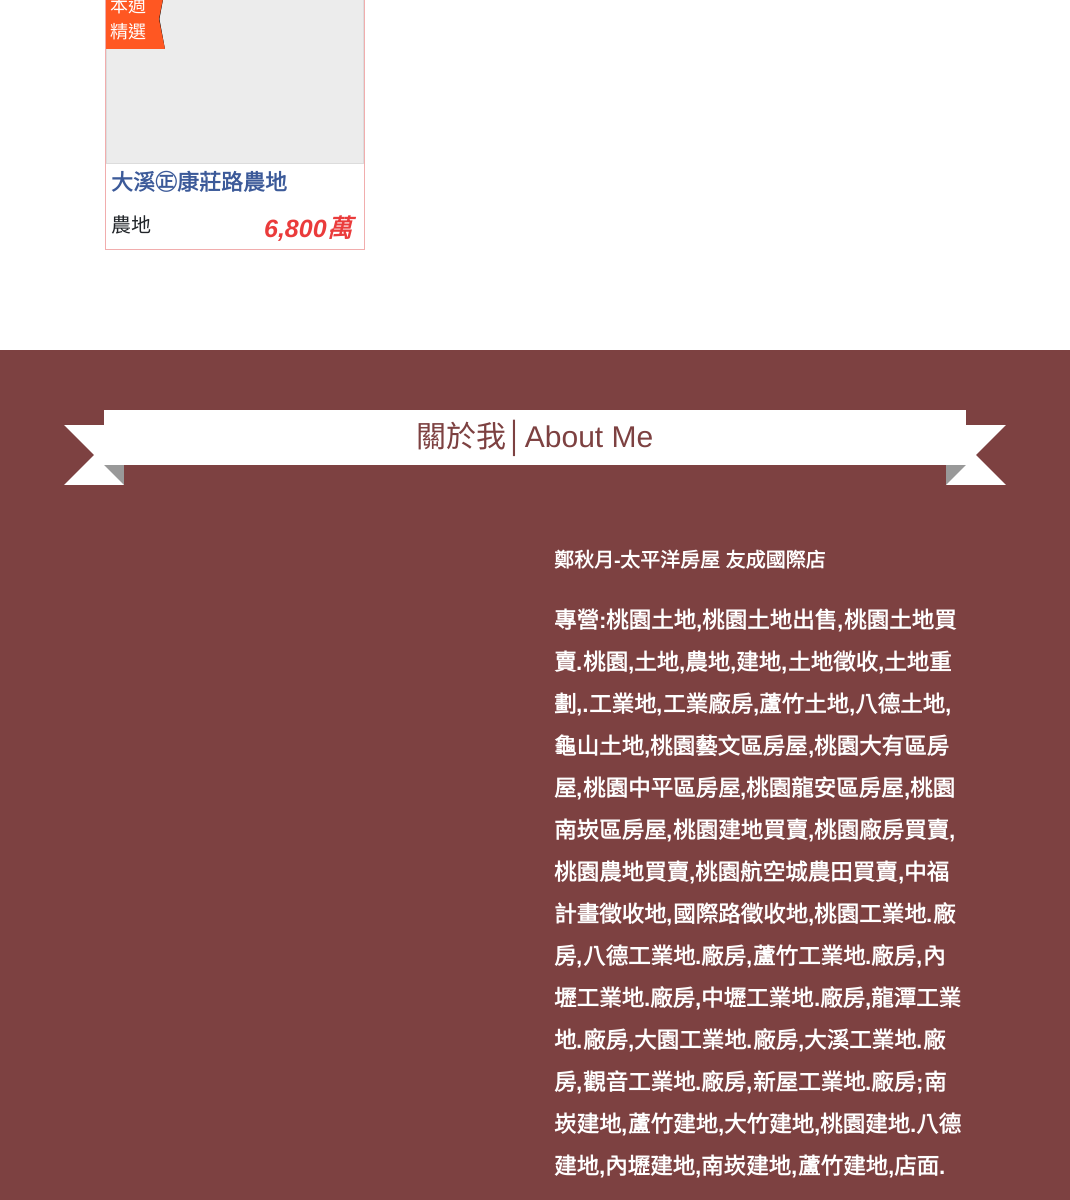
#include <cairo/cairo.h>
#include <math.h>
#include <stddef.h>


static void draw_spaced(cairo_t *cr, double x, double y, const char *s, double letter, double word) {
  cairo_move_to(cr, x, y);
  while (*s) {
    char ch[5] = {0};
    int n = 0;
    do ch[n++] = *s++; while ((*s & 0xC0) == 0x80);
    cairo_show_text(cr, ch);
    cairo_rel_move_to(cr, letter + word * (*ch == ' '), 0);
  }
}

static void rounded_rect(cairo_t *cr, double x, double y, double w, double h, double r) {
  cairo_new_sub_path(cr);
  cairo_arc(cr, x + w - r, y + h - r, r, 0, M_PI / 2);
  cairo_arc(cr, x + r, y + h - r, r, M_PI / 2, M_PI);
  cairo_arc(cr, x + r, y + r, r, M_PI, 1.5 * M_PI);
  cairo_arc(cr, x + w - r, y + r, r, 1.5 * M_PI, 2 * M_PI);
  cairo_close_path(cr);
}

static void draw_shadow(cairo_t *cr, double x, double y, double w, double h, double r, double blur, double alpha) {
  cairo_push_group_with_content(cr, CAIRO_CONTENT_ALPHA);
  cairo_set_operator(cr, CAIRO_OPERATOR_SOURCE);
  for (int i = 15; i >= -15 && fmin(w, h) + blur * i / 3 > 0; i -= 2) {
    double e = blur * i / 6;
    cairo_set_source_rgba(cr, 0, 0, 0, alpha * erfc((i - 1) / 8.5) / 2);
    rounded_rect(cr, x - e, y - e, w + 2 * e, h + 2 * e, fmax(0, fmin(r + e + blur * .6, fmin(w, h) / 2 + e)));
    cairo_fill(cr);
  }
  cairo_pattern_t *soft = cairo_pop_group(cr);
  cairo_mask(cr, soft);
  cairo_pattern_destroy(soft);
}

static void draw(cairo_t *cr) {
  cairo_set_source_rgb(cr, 1, 1, 1);
  cairo_paint(cr);
  cairo_set_source_rgb(cr, 236 / 255.0, 236 / 255.0, 236 / 255.0);
  cairo_rectangle(cr, 106.5, -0.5, 257, 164);
  cairo_fill_preserve(cr);
  cairo_set_source_rgb(cr, 220 / 255.0, 220 / 255.0, 220 / 255.0);
  cairo_set_line_width(cr, 1);
  cairo_stroke(cr);
  cairo_set_source_rgb(cr, 241 / 255.0, 173 / 255.0, 173 / 255.0);
  cairo_rectangle(cr, 364, 0, 1, 250);
  cairo_fill(cr);
  cairo_rectangle(cr, 105, 249, 260, 1);
  cairo_fill(cr);
  cairo_rectangle(cr, 105, 0, 1, 250);
  cairo_fill(cr);
  cairo_save(cr);
  cairo_new_path(cr);
  cairo_move_to(cr, 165, -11);
  cairo_line_to(cr, 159.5, 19);
  cairo_line_to(cr, 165, 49);
  cairo_line_to(cr, 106, 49);
  cairo_line_to(cr, 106, -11);
  cairo_close_path(cr);
  cairo_clip(cr);
  cairo_set_source_rgb(cr, 0, 0, 0);
  draw_shadow(cr, 109, -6, 59, 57, 0, 2, 1);
  cairo_restore(cr);
  cairo_set_source_rgb(cr, 1, 87 / 255.0, 34 / 255.0);
  cairo_new_path(cr);
  cairo_move_to(cr, 106, -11);
  cairo_line_to(cr, 165, -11);
  cairo_line_to(cr, 159, 19);
  cairo_line_to(cr, 165, 49);
  cairo_line_to(cr, 106, 49);
  cairo_close_path(cr);
  cairo_fill(cr);
  cairo_set_source_rgb(cr, 125 / 255.0, 65 / 255.0, 65 / 255.0);
  cairo_rectangle(cr, 0, 350, 1070, 850);
  cairo_fill(cr);
  cairo_set_source_rgb(cr, 1, 1, 1);
  cairo_new_path(cr);
  cairo_move_to(cr, 64, 425);
  cairo_line_to(cr, 124, 425);
  cairo_line_to(cr, 94, 455);
  cairo_close_path(cr);
  cairo_fill(cr);
  cairo_rectangle(cr, 94, 425, 30, 60);
  cairo_fill(cr);
  cairo_new_path(cr);
  cairo_move_to(cr, 124, 485);
  cairo_line_to(cr, 64, 485);
  cairo_line_to(cr, 94, 455);
  cairo_close_path(cr);
  cairo_fill(cr);
  cairo_new_path(cr);
  cairo_move_to(cr, 946, 425);
  cairo_line_to(cr, 1006, 425);
  cairo_line_to(cr, 976, 455);
  cairo_close_path(cr);
  cairo_move_to(cr, 1006, 485);
  cairo_line_to(cr, 946, 485);
  cairo_line_to(cr, 976, 455);
  cairo_close_path(cr);
  cairo_fill(cr);
  cairo_rectangle(cr, 946, 425, 30, 60);
  cairo_fill(cr);
  cairo_rectangle(cr, 104, 410, 862, 55);
  cairo_fill(cr);
  cairo_set_source_rgb(cr, 153 / 255.0, 153 / 255.0, 153 / 255.0);
  cairo_new_path(cr);
  cairo_move_to(cr, 104, 465);
  cairo_line_to(cr, 124, 465);
  cairo_line_to(cr, 124, 485);
  cairo_close_path(cr);
  cairo_fill(cr);
  cairo_new_path(cr);
  cairo_move_to(cr, 946, 465);
  cairo_line_to(cr, 966, 465);
  cairo_line_to(cr, 946, 485);
  cairo_close_path(cr);
  cairo_fill(cr);
  cairo_select_font_face(cr, "Noto Sans CJK TC", CAIRO_FONT_SLANT_NORMAL, CAIRO_FONT_WEIGHT_NORMAL);
  cairo_set_font_size(cr, 18);
  cairo_set_source_rgb(cr, 1, 1, 1);
  cairo_move_to(cr, 110, 12);
  cairo_show_text(cr, "本週");
  cairo_move_to(cr, 110, 38);
  cairo_show_text(cr, "精選");
  cairo_select_font_face(cr, "Noto Sans CJK TC", CAIRO_FONT_SLANT_NORMAL, CAIRO_FONT_WEIGHT_BOLD);
  cairo_set_font_size(cr, 22);
  cairo_set_source_rgb(cr, 60 / 255.0, 90 / 255.0, 153 / 255.0);
  cairo_move_to(cr, 111, 190);
  cairo_show_text(cr, "大溪㊣康莊路農地");
  cairo_select_font_face(cr, "Noto Sans CJK TC", CAIRO_FONT_SLANT_NORMAL, CAIRO_FONT_WEIGHT_NORMAL);
  cairo_set_font_size(cr, 20);
  cairo_set_source_rgb(cr, 33 / 255.0, 37 / 255.0, 41 / 255.0);
  cairo_move_to(cr, 111, 232);
  cairo_show_text(cr, "農地");
  cairo_select_font_face(cr, "Liberation Sans", CAIRO_FONT_SLANT_ITALIC, CAIRO_FONT_WEIGHT_BOLD);
  cairo_set_font_size(cr, 25);
  cairo_set_source_rgb(cr, 234 / 255.0, 59 / 255.0, 59 / 255.0);
  cairo_move_to(cr, 264, 237);
  cairo_show_text(cr, "6,800");
  cairo_select_font_face(cr, "Noto Sans CJK TC", CAIRO_FONT_SLANT_ITALIC, CAIRO_FONT_WEIGHT_BOLD);
  cairo_move_to(cr, 327, 237);
  cairo_show_text(cr, "萬");
  cairo_select_font_face(cr, "Noto Sans CJK TC", CAIRO_FONT_SLANT_NORMAL, CAIRO_FONT_WEIGHT_NORMAL);
  cairo_set_font_size(cr, 30);
  cairo_set_source_rgb(cr, 125 / 255.0, 65 / 255.0, 65 / 255.0);
  cairo_move_to(cr, 416, 447);
  cairo_show_text(cr, "關於我");
  cairo_select_font_face(cr, "Liberation Sans", CAIRO_FONT_SLANT_NORMAL, CAIRO_FONT_WEIGHT_NORMAL);
  cairo_move_to(cr, 506, 447);
  cairo_show_text(cr, "│About Me");
  cairo_select_font_face(cr, "Noto Sans CJK TC", CAIRO_FONT_SLANT_NORMAL, CAIRO_FONT_WEIGHT_BOLD);
  cairo_set_font_size(cr, 20);
  cairo_set_source_rgb(cr, 1, 1, 1);
  cairo_move_to(cr, 554, 567);
  cairo_show_text(cr, "鄭秋月");
  cairo_select_font_face(cr, "Liberation Sans", CAIRO_FONT_SLANT_NORMAL, CAIRO_FONT_WEIGHT_BOLD);
  cairo_move_to(cr, 614, 567);
  cairo_show_text(cr, "-");
  cairo_select_font_face(cr, "Noto Sans CJK TC", CAIRO_FONT_SLANT_NORMAL, CAIRO_FONT_WEIGHT_BOLD);
  draw_spaced(cr, 620, 567, "太平洋房屋 友成國際店", 0, 1);
  cairo_set_font_size(cr, 22.5);
  cairo_move_to(cr, 554, 628);
  cairo_show_text(cr, "專營");
  cairo_select_font_face(cr, "Liberation Sans", CAIRO_FONT_SLANT_NORMAL, CAIRO_FONT_WEIGHT_BOLD);
  cairo_move_to(cr, 599, 628);
  cairo_show_text(cr, ":");
  cairo_select_font_face(cr, "Noto Sans CJK TC", CAIRO_FONT_SLANT_NORMAL, CAIRO_FONT_WEIGHT_BOLD);
  cairo_move_to(cr, 606, 628);
  cairo_show_text(cr, "桃園土地");
  cairo_select_font_face(cr, "Liberation Sans", CAIRO_FONT_SLANT_NORMAL, CAIRO_FONT_WEIGHT_BOLD);
  cairo_move_to(cr, 696, 628);
  cairo_show_text(cr, ",");
  cairo_select_font_face(cr, "Noto Sans CJK TC", CAIRO_FONT_SLANT_NORMAL, CAIRO_FONT_WEIGHT_BOLD);
  cairo_move_to(cr, 702, 628);
  cairo_show_text(cr, "桃園土地出售");
  cairo_select_font_face(cr, "Liberation Sans", CAIRO_FONT_SLANT_NORMAL, CAIRO_FONT_WEIGHT_BOLD);
  cairo_move_to(cr, 837, 628);
  cairo_show_text(cr, ",");
  cairo_select_font_face(cr, "Noto Sans CJK TC", CAIRO_FONT_SLANT_NORMAL, CAIRO_FONT_WEIGHT_BOLD);
  cairo_move_to(cr, 844, 628);
  cairo_show_text(cr, "桃園土地買");
  cairo_move_to(cr, 554, 670);
  cairo_show_text(cr, "賣");
  cairo_select_font_face(cr, "Liberation Sans", CAIRO_FONT_SLANT_NORMAL, CAIRO_FONT_WEIGHT_BOLD);
  cairo_move_to(cr, 576, 670);
  cairo_show_text(cr, ".");
  cairo_select_font_face(cr, "Noto Sans CJK TC", CAIRO_FONT_SLANT_NORMAL, CAIRO_FONT_WEIGHT_BOLD);
  cairo_move_to(cr, 583, 670);
  cairo_show_text(cr, "桃園");
  cairo_select_font_face(cr, "Liberation Sans", CAIRO_FONT_SLANT_NORMAL, CAIRO_FONT_WEIGHT_BOLD);
  cairo_move_to(cr, 628, 670);
  cairo_show_text(cr, ",");
  cairo_select_font_face(cr, "Noto Sans CJK TC", CAIRO_FONT_SLANT_NORMAL, CAIRO_FONT_WEIGHT_BOLD);
  cairo_move_to(cr, 634, 670);
  cairo_show_text(cr, "土地");
  cairo_select_font_face(cr, "Liberation Sans", CAIRO_FONT_SLANT_NORMAL, CAIRO_FONT_WEIGHT_BOLD);
  cairo_move_to(cr, 679, 670);
  cairo_show_text(cr, ",");
  cairo_select_font_face(cr, "Noto Sans CJK TC", CAIRO_FONT_SLANT_NORMAL, CAIRO_FONT_WEIGHT_BOLD);
  cairo_move_to(cr, 685, 670);
  cairo_show_text(cr, "農地");
  cairo_select_font_face(cr, "Liberation Sans", CAIRO_FONT_SLANT_NORMAL, CAIRO_FONT_WEIGHT_BOLD);
  cairo_move_to(cr, 730, 670);
  cairo_show_text(cr, ",");
  cairo_select_font_face(cr, "Noto Sans CJK TC", CAIRO_FONT_SLANT_NORMAL, CAIRO_FONT_WEIGHT_BOLD);
  cairo_move_to(cr, 736, 670);
  cairo_show_text(cr, "建地");
  cairo_select_font_face(cr, "Liberation Sans", CAIRO_FONT_SLANT_NORMAL, CAIRO_FONT_WEIGHT_BOLD);
  cairo_move_to(cr, 781, 670);
  cairo_show_text(cr, ",");
  cairo_select_font_face(cr, "Noto Sans CJK TC", CAIRO_FONT_SLANT_NORMAL, CAIRO_FONT_WEIGHT_BOLD);
  cairo_move_to(cr, 788, 670);
  cairo_show_text(cr, "土地徵收");
  cairo_select_font_face(cr, "Liberation Sans", CAIRO_FONT_SLANT_NORMAL, CAIRO_FONT_WEIGHT_BOLD);
  cairo_move_to(cr, 878, 670);
  cairo_show_text(cr, ",");
  cairo_select_font_face(cr, "Noto Sans CJK TC", CAIRO_FONT_SLANT_NORMAL, CAIRO_FONT_WEIGHT_BOLD);
  cairo_move_to(cr, 884, 670);
  cairo_show_text(cr, "土地重");
  cairo_move_to(cr, 554, 712);
  cairo_show_text(cr, "劃");
  cairo_select_font_face(cr, "Liberation Sans", CAIRO_FONT_SLANT_NORMAL, CAIRO_FONT_WEIGHT_BOLD);
  cairo_move_to(cr, 576, 712);
  cairo_show_text(cr, ",.");
  cairo_select_font_face(cr, "Noto Sans CJK TC", CAIRO_FONT_SLANT_NORMAL, CAIRO_FONT_WEIGHT_BOLD);
  cairo_move_to(cr, 589, 712);
  cairo_show_text(cr, "工業地");
  cairo_select_font_face(cr, "Liberation Sans", CAIRO_FONT_SLANT_NORMAL, CAIRO_FONT_WEIGHT_BOLD);
  cairo_move_to(cr, 656, 712);
  cairo_show_text(cr, ",");
  cairo_select_font_face(cr, "Noto Sans CJK TC", CAIRO_FONT_SLANT_NORMAL, CAIRO_FONT_WEIGHT_BOLD);
  cairo_move_to(cr, 663, 712);
  cairo_show_text(cr, "工業廠房");
  cairo_select_font_face(cr, "Liberation Sans", CAIRO_FONT_SLANT_NORMAL, CAIRO_FONT_WEIGHT_BOLD);
  cairo_move_to(cr, 753, 712);
  cairo_show_text(cr, ",");
  cairo_select_font_face(cr, "Noto Sans CJK TC", CAIRO_FONT_SLANT_NORMAL, CAIRO_FONT_WEIGHT_BOLD);
  cairo_move_to(cr, 759, 712);
  cairo_show_text(cr, "蘆竹土地");
  cairo_select_font_face(cr, "Liberation Sans", CAIRO_FONT_SLANT_NORMAL, CAIRO_FONT_WEIGHT_BOLD);
  cairo_move_to(cr, 849, 712);
  cairo_show_text(cr, ",");
  cairo_select_font_face(cr, "Noto Sans CJK TC", CAIRO_FONT_SLANT_NORMAL, CAIRO_FONT_WEIGHT_BOLD);
  cairo_move_to(cr, 855, 712);
  cairo_show_text(cr, "八德土地");
  cairo_select_font_face(cr, "Liberation Sans", CAIRO_FONT_SLANT_NORMAL, CAIRO_FONT_WEIGHT_BOLD);
  cairo_move_to(cr, 945, 712);
  cairo_show_text(cr, ",");
  cairo_select_font_face(cr, "Noto Sans CJK TC", CAIRO_FONT_SLANT_NORMAL, CAIRO_FONT_WEIGHT_BOLD);
  cairo_move_to(cr, 554, 754);
  cairo_show_text(cr, "龜山土地");
  cairo_select_font_face(cr, "Liberation Sans", CAIRO_FONT_SLANT_NORMAL, CAIRO_FONT_WEIGHT_BOLD);
  cairo_move_to(cr, 644, 754);
  cairo_show_text(cr, ",");
  cairo_select_font_face(cr, "Noto Sans CJK TC", CAIRO_FONT_SLANT_NORMAL, CAIRO_FONT_WEIGHT_BOLD);
  cairo_move_to(cr, 650, 754);
  cairo_show_text(cr, "桃園藝文區房屋");
  cairo_select_font_face(cr, "Liberation Sans", CAIRO_FONT_SLANT_NORMAL, CAIRO_FONT_WEIGHT_BOLD);
  cairo_move_to(cr, 808, 754);
  cairo_show_text(cr, ",");
  cairo_select_font_face(cr, "Noto Sans CJK TC", CAIRO_FONT_SLANT_NORMAL, CAIRO_FONT_WEIGHT_BOLD);
  cairo_move_to(cr, 814, 754);
  cairo_show_text(cr, "桃園大有區房");
  cairo_move_to(cr, 554, 796);
  cairo_show_text(cr, "屋");
  cairo_select_font_face(cr, "Liberation Sans", CAIRO_FONT_SLANT_NORMAL, CAIRO_FONT_WEIGHT_BOLD);
  cairo_move_to(cr, 576, 796);
  cairo_show_text(cr, ",");
  cairo_select_font_face(cr, "Noto Sans CJK TC", CAIRO_FONT_SLANT_NORMAL, CAIRO_FONT_WEIGHT_BOLD);
  cairo_move_to(cr, 583, 796);
  cairo_show_text(cr, "桃園中平區房屋");
  cairo_select_font_face(cr, "Liberation Sans", CAIRO_FONT_SLANT_NORMAL, CAIRO_FONT_WEIGHT_BOLD);
  cairo_move_to(cr, 740, 796);
  cairo_show_text(cr, ",");
  cairo_select_font_face(cr, "Noto Sans CJK TC", CAIRO_FONT_SLANT_NORMAL, CAIRO_FONT_WEIGHT_BOLD);
  cairo_move_to(cr, 746, 796);
  cairo_show_text(cr, "桃園龍安區房屋");
  cairo_select_font_face(cr, "Liberation Sans", CAIRO_FONT_SLANT_NORMAL, CAIRO_FONT_WEIGHT_BOLD);
  cairo_move_to(cr, 904, 796);
  cairo_show_text(cr, ",");
  cairo_select_font_face(cr, "Noto Sans CJK TC", CAIRO_FONT_SLANT_NORMAL, CAIRO_FONT_WEIGHT_BOLD);
  cairo_move_to(cr, 910, 796);
  cairo_show_text(cr, "桃園");
  cairo_move_to(cr, 554, 838);
  cairo_show_text(cr, "南崁區房屋");
  cairo_select_font_face(cr, "Liberation Sans", CAIRO_FONT_SLANT_NORMAL, CAIRO_FONT_WEIGHT_BOLD);
  cairo_move_to(cr, 666, 838);
  cairo_show_text(cr, ",");
  cairo_select_font_face(cr, "Noto Sans CJK TC", CAIRO_FONT_SLANT_NORMAL, CAIRO_FONT_WEIGHT_BOLD);
  cairo_move_to(cr, 673, 838);
  cairo_show_text(cr, "桃園建地買賣");
  cairo_select_font_face(cr, "Liberation Sans", CAIRO_FONT_SLANT_NORMAL, CAIRO_FONT_WEIGHT_BOLD);
  cairo_move_to(cr, 808, 838);
  cairo_show_text(cr, ",");
  cairo_select_font_face(cr, "Noto Sans CJK TC", CAIRO_FONT_SLANT_NORMAL, CAIRO_FONT_WEIGHT_BOLD);
  cairo_move_to(cr, 814, 838);
  cairo_show_text(cr, "桃園廠房買賣");
  cairo_select_font_face(cr, "Liberation Sans", CAIRO_FONT_SLANT_NORMAL, CAIRO_FONT_WEIGHT_BOLD);
  cairo_move_to(cr, 949, 838);
  cairo_show_text(cr, ",");
  cairo_select_font_face(cr, "Noto Sans CJK TC", CAIRO_FONT_SLANT_NORMAL, CAIRO_FONT_WEIGHT_BOLD);
  cairo_move_to(cr, 554, 880);
  cairo_show_text(cr, "桃園農地買賣");
  cairo_select_font_face(cr, "Liberation Sans", CAIRO_FONT_SLANT_NORMAL, CAIRO_FONT_WEIGHT_BOLD);
  cairo_move_to(cr, 689, 880);
  cairo_show_text(cr, ",");
  cairo_select_font_face(cr, "Noto Sans CJK TC", CAIRO_FONT_SLANT_NORMAL, CAIRO_FONT_WEIGHT_BOLD);
  cairo_move_to(cr, 695, 880);
  cairo_show_text(cr, "桃園航空城農田買賣");
  cairo_select_font_face(cr, "Liberation Sans", CAIRO_FONT_SLANT_NORMAL, CAIRO_FONT_WEIGHT_BOLD);
  cairo_move_to(cr, 898, 880);
  cairo_show_text(cr, ",");
  cairo_select_font_face(cr, "Noto Sans CJK TC", CAIRO_FONT_SLANT_NORMAL, CAIRO_FONT_WEIGHT_BOLD);
  cairo_move_to(cr, 904, 880);
  cairo_show_text(cr, "中福");
  cairo_move_to(cr, 554, 922);
  cairo_show_text(cr, "計畫徵收地");
  cairo_select_font_face(cr, "Liberation Sans", CAIRO_FONT_SLANT_NORMAL, CAIRO_FONT_WEIGHT_BOLD);
  cairo_move_to(cr, 666, 922);
  cairo_show_text(cr, ",");
  cairo_select_font_face(cr, "Noto Sans CJK TC", CAIRO_FONT_SLANT_NORMAL, CAIRO_FONT_WEIGHT_BOLD);
  cairo_move_to(cr, 673, 922);
  cairo_show_text(cr, "國際路徵收地");
  cairo_select_font_face(cr, "Liberation Sans", CAIRO_FONT_SLANT_NORMAL, CAIRO_FONT_WEIGHT_BOLD);
  cairo_move_to(cr, 808, 922);
  cairo_show_text(cr, ",");
  cairo_select_font_face(cr, "Noto Sans CJK TC", CAIRO_FONT_SLANT_NORMAL, CAIRO_FONT_WEIGHT_BOLD);
  cairo_move_to(cr, 814, 922);
  cairo_show_text(cr, "桃園工業地");
  cairo_select_font_face(cr, "Liberation Sans", CAIRO_FONT_SLANT_NORMAL, CAIRO_FONT_WEIGHT_BOLD);
  cairo_move_to(cr, 926, 922);
  cairo_show_text(cr, ".");
  cairo_select_font_face(cr, "Noto Sans CJK TC", CAIRO_FONT_SLANT_NORMAL, CAIRO_FONT_WEIGHT_BOLD);
  cairo_move_to(cr, 933, 922);
  cairo_show_text(cr, "廠");
  cairo_move_to(cr, 554, 964);
  cairo_show_text(cr, "房");
  cairo_select_font_face(cr, "Liberation Sans", CAIRO_FONT_SLANT_NORMAL, CAIRO_FONT_WEIGHT_BOLD);
  cairo_move_to(cr, 576, 964);
  cairo_show_text(cr, ",");
  cairo_select_font_face(cr, "Noto Sans CJK TC", CAIRO_FONT_SLANT_NORMAL, CAIRO_FONT_WEIGHT_BOLD);
  cairo_move_to(cr, 583, 964);
  cairo_show_text(cr, "八德工業地");
  cairo_select_font_face(cr, "Liberation Sans", CAIRO_FONT_SLANT_NORMAL, CAIRO_FONT_WEIGHT_BOLD);
  cairo_move_to(cr, 695, 964);
  cairo_show_text(cr, ".");
  cairo_select_font_face(cr, "Noto Sans CJK TC", CAIRO_FONT_SLANT_NORMAL, CAIRO_FONT_WEIGHT_BOLD);
  cairo_move_to(cr, 701, 964);
  cairo_show_text(cr, "廠房");
  cairo_select_font_face(cr, "Liberation Sans", CAIRO_FONT_SLANT_NORMAL, CAIRO_FONT_WEIGHT_BOLD);
  cairo_move_to(cr, 746, 964);
  cairo_show_text(cr, ",");
  cairo_select_font_face(cr, "Noto Sans CJK TC", CAIRO_FONT_SLANT_NORMAL, CAIRO_FONT_WEIGHT_BOLD);
  cairo_move_to(cr, 753, 964);
  cairo_show_text(cr, "蘆竹工業地");
  cairo_select_font_face(cr, "Liberation Sans", CAIRO_FONT_SLANT_NORMAL, CAIRO_FONT_WEIGHT_BOLD);
  cairo_move_to(cr, 865, 964);
  cairo_show_text(cr, ".");
  cairo_select_font_face(cr, "Noto Sans CJK TC", CAIRO_FONT_SLANT_NORMAL, CAIRO_FONT_WEIGHT_BOLD);
  cairo_move_to(cr, 871, 964);
  cairo_show_text(cr, "廠房");
  cairo_select_font_face(cr, "Liberation Sans", CAIRO_FONT_SLANT_NORMAL, CAIRO_FONT_WEIGHT_BOLD);
  cairo_move_to(cr, 916, 964);
  cairo_show_text(cr, ",");
  cairo_select_font_face(cr, "Noto Sans CJK TC", CAIRO_FONT_SLANT_NORMAL, CAIRO_FONT_WEIGHT_BOLD);
  cairo_move_to(cr, 923, 964);
  cairo_show_text(cr, "內");
  cairo_move_to(cr, 554, 1006);
  cairo_show_text(cr, "壢工業地");
  cairo_select_font_face(cr, "Liberation Sans", CAIRO_FONT_SLANT_NORMAL, CAIRO_FONT_WEIGHT_BOLD);
  cairo_move_to(cr, 644, 1006);
  cairo_show_text(cr, ".");
  cairo_select_font_face(cr, "Noto Sans CJK TC", CAIRO_FONT_SLANT_NORMAL, CAIRO_FONT_WEIGHT_BOLD);
  cairo_move_to(cr, 650, 1006);
  cairo_show_text(cr, "廠房");
  cairo_select_font_face(cr, "Liberation Sans", CAIRO_FONT_SLANT_NORMAL, CAIRO_FONT_WEIGHT_BOLD);
  cairo_move_to(cr, 695, 1006);
  cairo_show_text(cr, ",");
  cairo_select_font_face(cr, "Noto Sans CJK TC", CAIRO_FONT_SLANT_NORMAL, CAIRO_FONT_WEIGHT_BOLD);
  cairo_move_to(cr, 701, 1006);
  cairo_show_text(cr, "中壢工業地");
  cairo_select_font_face(cr, "Liberation Sans", CAIRO_FONT_SLANT_NORMAL, CAIRO_FONT_WEIGHT_BOLD);
  cairo_move_to(cr, 814, 1006);
  cairo_show_text(cr, ".");
  cairo_select_font_face(cr, "Noto Sans CJK TC", CAIRO_FONT_SLANT_NORMAL, CAIRO_FONT_WEIGHT_BOLD);
  cairo_move_to(cr, 820, 1006);
  cairo_show_text(cr, "廠房");
  cairo_select_font_face(cr, "Liberation Sans", CAIRO_FONT_SLANT_NORMAL, CAIRO_FONT_WEIGHT_BOLD);
  cairo_move_to(cr, 865, 1006);
  cairo_show_text(cr, ",");
  cairo_select_font_face(cr, "Noto Sans CJK TC", CAIRO_FONT_SLANT_NORMAL, CAIRO_FONT_WEIGHT_BOLD);
  cairo_move_to(cr, 871, 1006);
  cairo_show_text(cr, "龍潭工業");
  cairo_move_to(cr, 554, 1048);
  cairo_show_text(cr, "地");
  cairo_select_font_face(cr, "Liberation Sans", CAIRO_FONT_SLANT_NORMAL, CAIRO_FONT_WEIGHT_BOLD);
  cairo_move_to(cr, 576, 1048);
  cairo_show_text(cr, ".");
  cairo_select_font_face(cr, "Noto Sans CJK TC", CAIRO_FONT_SLANT_NORMAL, CAIRO_FONT_WEIGHT_BOLD);
  cairo_move_to(cr, 583, 1048);
  cairo_show_text(cr, "廠房");
  cairo_select_font_face(cr, "Liberation Sans", CAIRO_FONT_SLANT_NORMAL, CAIRO_FONT_WEIGHT_BOLD);
  cairo_move_to(cr, 628, 1048);
  cairo_show_text(cr, ",");
  cairo_select_font_face(cr, "Noto Sans CJK TC", CAIRO_FONT_SLANT_NORMAL, CAIRO_FONT_WEIGHT_BOLD);
  cairo_move_to(cr, 634, 1048);
  cairo_show_text(cr, "大園工業地");
  cairo_select_font_face(cr, "Liberation Sans", CAIRO_FONT_SLANT_NORMAL, CAIRO_FONT_WEIGHT_BOLD);
  cairo_move_to(cr, 746, 1048);
  cairo_show_text(cr, ".");
  cairo_select_font_face(cr, "Noto Sans CJK TC", CAIRO_FONT_SLANT_NORMAL, CAIRO_FONT_WEIGHT_BOLD);
  cairo_move_to(cr, 753, 1048);
  cairo_show_text(cr, "廠房");
  cairo_select_font_face(cr, "Liberation Sans", CAIRO_FONT_SLANT_NORMAL, CAIRO_FONT_WEIGHT_BOLD);
  cairo_move_to(cr, 798, 1048);
  cairo_show_text(cr, ",");
  cairo_select_font_face(cr, "Noto Sans CJK TC", CAIRO_FONT_SLANT_NORMAL, CAIRO_FONT_WEIGHT_BOLD);
  cairo_move_to(cr, 804, 1048);
  cairo_show_text(cr, "大溪工業地");
  cairo_select_font_face(cr, "Liberation Sans", CAIRO_FONT_SLANT_NORMAL, CAIRO_FONT_WEIGHT_BOLD);
  cairo_move_to(cr, 916, 1048);
  cairo_show_text(cr, ".");
  cairo_select_font_face(cr, "Noto Sans CJK TC", CAIRO_FONT_SLANT_NORMAL, CAIRO_FONT_WEIGHT_BOLD);
  cairo_move_to(cr, 923, 1048);
  cairo_show_text(cr, "廠");
  cairo_move_to(cr, 554, 1090);
  cairo_show_text(cr, "房");
  cairo_select_font_face(cr, "Liberation Sans", CAIRO_FONT_SLANT_NORMAL, CAIRO_FONT_WEIGHT_BOLD);
  cairo_move_to(cr, 576, 1090);
  cairo_show_text(cr, ",");
  cairo_select_font_face(cr, "Noto Sans CJK TC", CAIRO_FONT_SLANT_NORMAL, CAIRO_FONT_WEIGHT_BOLD);
  cairo_move_to(cr, 583, 1090);
  cairo_show_text(cr, "觀音工業地");
  cairo_select_font_face(cr, "Liberation Sans", CAIRO_FONT_SLANT_NORMAL, CAIRO_FONT_WEIGHT_BOLD);
  cairo_move_to(cr, 695, 1090);
  cairo_show_text(cr, ".");
  cairo_select_font_face(cr, "Noto Sans CJK TC", CAIRO_FONT_SLANT_NORMAL, CAIRO_FONT_WEIGHT_BOLD);
  cairo_move_to(cr, 701, 1090);
  cairo_show_text(cr, "廠房");
  cairo_select_font_face(cr, "Liberation Sans", CAIRO_FONT_SLANT_NORMAL, CAIRO_FONT_WEIGHT_BOLD);
  cairo_move_to(cr, 746, 1090);
  cairo_show_text(cr, ",");
  cairo_select_font_face(cr, "Noto Sans CJK TC", CAIRO_FONT_SLANT_NORMAL, CAIRO_FONT_WEIGHT_BOLD);
  cairo_move_to(cr, 753, 1090);
  cairo_show_text(cr, "新屋工業地");
  cairo_select_font_face(cr, "Liberation Sans", CAIRO_FONT_SLANT_NORMAL, CAIRO_FONT_WEIGHT_BOLD);
  cairo_move_to(cr, 865, 1090);
  cairo_show_text(cr, ".");
  cairo_select_font_face(cr, "Noto Sans CJK TC", CAIRO_FONT_SLANT_NORMAL, CAIRO_FONT_WEIGHT_BOLD);
  cairo_move_to(cr, 871, 1090);
  cairo_show_text(cr, "廠房");
  cairo_select_font_face(cr, "Liberation Sans", CAIRO_FONT_SLANT_NORMAL, CAIRO_FONT_WEIGHT_BOLD);
  cairo_move_to(cr, 916, 1090);
  cairo_show_text(cr, ";");
  cairo_select_font_face(cr, "Noto Sans CJK TC", CAIRO_FONT_SLANT_NORMAL, CAIRO_FONT_WEIGHT_BOLD);
  cairo_move_to(cr, 924, 1090);
  cairo_show_text(cr, "南");
  cairo_move_to(cr, 554, 1132);
  cairo_show_text(cr, "崁建地");
  cairo_select_font_face(cr, "Liberation Sans", CAIRO_FONT_SLANT_NORMAL, CAIRO_FONT_WEIGHT_BOLD);
  cairo_move_to(cr, 621, 1132);
  cairo_show_text(cr, ",");
  cairo_select_font_face(cr, "Noto Sans CJK TC", CAIRO_FONT_SLANT_NORMAL, CAIRO_FONT_WEIGHT_BOLD);
  cairo_move_to(cr, 628, 1132);
  cairo_show_text(cr, "蘆竹建地");
  cairo_select_font_face(cr, "Liberation Sans", CAIRO_FONT_SLANT_NORMAL, CAIRO_FONT_WEIGHT_BOLD);
  cairo_move_to(cr, 718, 1132);
  cairo_show_text(cr, ",");
  cairo_select_font_face(cr, "Noto Sans CJK TC", CAIRO_FONT_SLANT_NORMAL, CAIRO_FONT_WEIGHT_BOLD);
  cairo_move_to(cr, 724, 1132);
  cairo_show_text(cr, "大竹建地");
  cairo_select_font_face(cr, "Liberation Sans", CAIRO_FONT_SLANT_NORMAL, CAIRO_FONT_WEIGHT_BOLD);
  cairo_move_to(cr, 814, 1132);
  cairo_show_text(cr, ",");
  cairo_select_font_face(cr, "Noto Sans CJK TC", CAIRO_FONT_SLANT_NORMAL, CAIRO_FONT_WEIGHT_BOLD);
  cairo_move_to(cr, 820, 1132);
  cairo_show_text(cr, "桃園建地");
  cairo_select_font_face(cr, "Liberation Sans", CAIRO_FONT_SLANT_NORMAL, CAIRO_FONT_WEIGHT_BOLD);
  cairo_move_to(cr, 910, 1132);
  cairo_show_text(cr, ".");
  cairo_select_font_face(cr, "Noto Sans CJK TC", CAIRO_FONT_SLANT_NORMAL, CAIRO_FONT_WEIGHT_BOLD);
  cairo_move_to(cr, 916, 1132);
  cairo_show_text(cr, "八德");
  cairo_move_to(cr, 554, 1174);
  cairo_show_text(cr, "建地");
  cairo_select_font_face(cr, "Liberation Sans", CAIRO_FONT_SLANT_NORMAL, CAIRO_FONT_WEIGHT_BOLD);
  cairo_move_to(cr, 599, 1174);
  cairo_show_text(cr, ",");
  cairo_select_font_face(cr, "Noto Sans CJK TC", CAIRO_FONT_SLANT_NORMAL, CAIRO_FONT_WEIGHT_BOLD);
  cairo_move_to(cr, 605, 1174);
  cairo_show_text(cr, "內壢建地");
  cairo_select_font_face(cr, "Liberation Sans", CAIRO_FONT_SLANT_NORMAL, CAIRO_FONT_WEIGHT_BOLD);
  cairo_move_to(cr, 695, 1174);
  cairo_show_text(cr, ",");
  cairo_select_font_face(cr, "Noto Sans CJK TC", CAIRO_FONT_SLANT_NORMAL, CAIRO_FONT_WEIGHT_BOLD);
  cairo_move_to(cr, 701, 1174);
  cairo_show_text(cr, "南崁建地");
  cairo_select_font_face(cr, "Liberation Sans", CAIRO_FONT_SLANT_NORMAL, CAIRO_FONT_WEIGHT_BOLD);
  cairo_move_to(cr, 791, 1174);
  cairo_show_text(cr, ",");
  cairo_select_font_face(cr, "Noto Sans CJK TC", CAIRO_FONT_SLANT_NORMAL, CAIRO_FONT_WEIGHT_BOLD);
  cairo_move_to(cr, 798, 1174);
  cairo_show_text(cr, "蘆竹建地");
  cairo_select_font_face(cr, "Liberation Sans", CAIRO_FONT_SLANT_NORMAL, CAIRO_FONT_WEIGHT_BOLD);
  cairo_move_to(cr, 888, 1174);
  cairo_show_text(cr, ",");
  cairo_select_font_face(cr, "Noto Sans CJK TC", CAIRO_FONT_SLANT_NORMAL, CAIRO_FONT_WEIGHT_BOLD);
  cairo_move_to(cr, 894, 1174);
  cairo_show_text(cr, "店面");
  cairo_select_font_face(cr, "Liberation Sans", CAIRO_FONT_SLANT_NORMAL, CAIRO_FONT_WEIGHT_BOLD);
  cairo_move_to(cr, 939, 1174);
  cairo_show_text(cr, ".");
}

int main(void) {
  cairo_surface_t *surface = cairo_image_surface_create(CAIRO_FORMAT_RGB24, 1070, 1200);
  cairo_t *cr = cairo_create(surface);
  cairo_font_options_t *options = cairo_font_options_create();
  cairo_font_options_set_hint_metrics(options, CAIRO_HINT_METRICS_OFF);
  cairo_font_options_set_hint_style(options, CAIRO_HINT_STYLE_NONE);
  cairo_set_font_options(cr, options);
  cairo_set_miter_limit(cr, 4);
  draw(cr);
  cairo_surface_write_to_png(surface, "out.png");
  cairo_font_options_destroy(options);
  cairo_destroy(cr);
  cairo_surface_destroy(surface);
  return 0;
}
